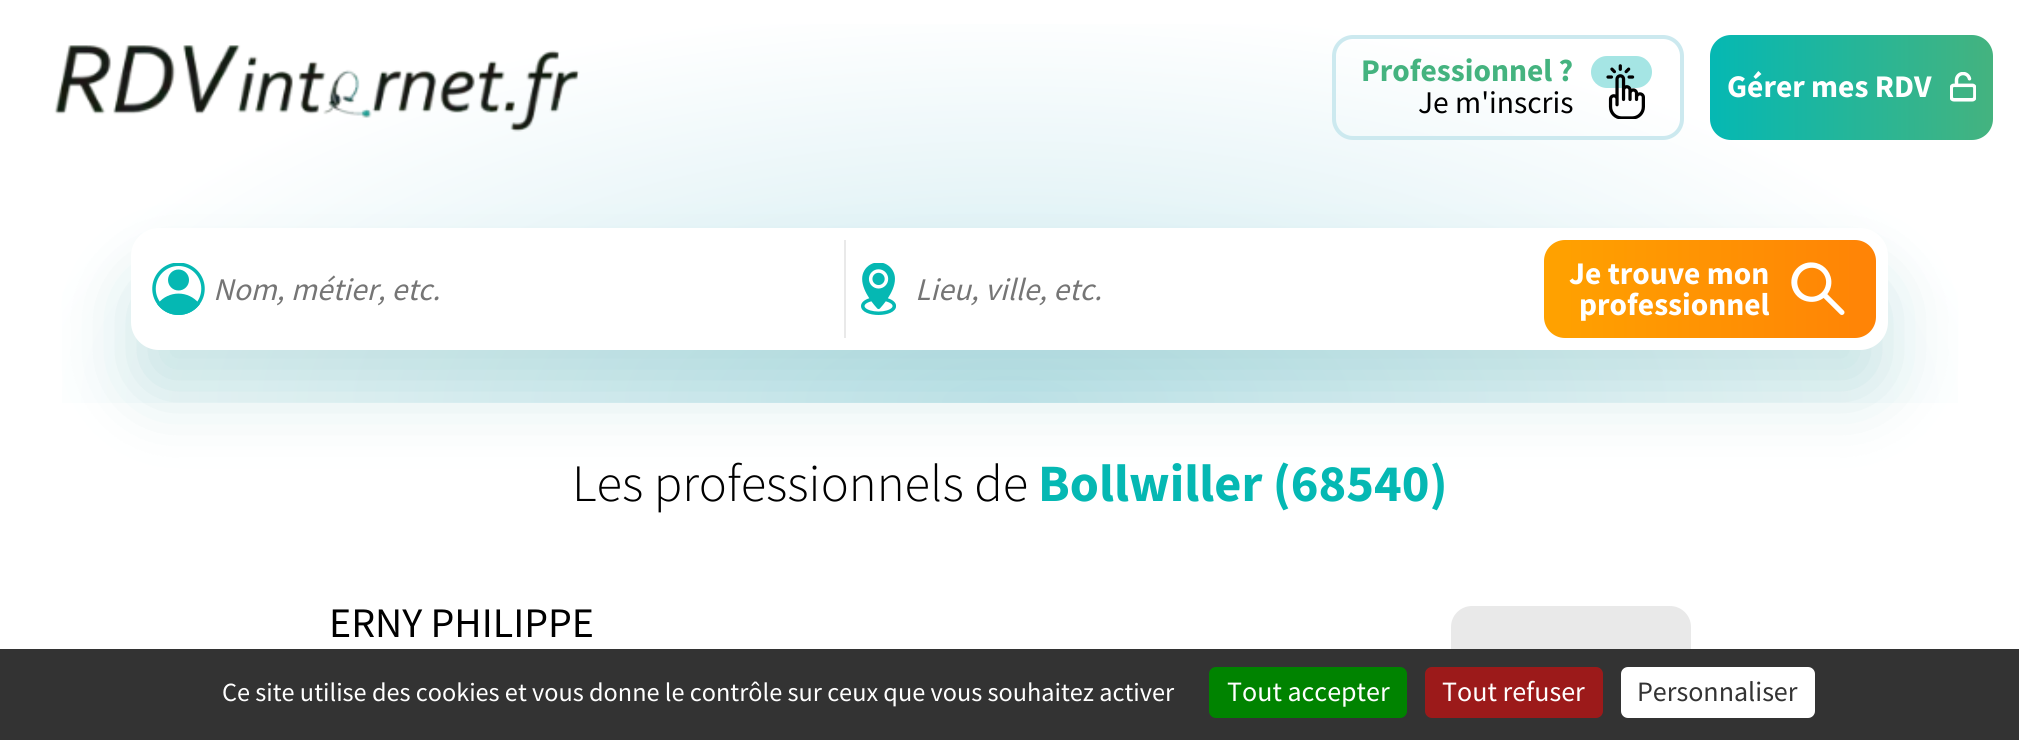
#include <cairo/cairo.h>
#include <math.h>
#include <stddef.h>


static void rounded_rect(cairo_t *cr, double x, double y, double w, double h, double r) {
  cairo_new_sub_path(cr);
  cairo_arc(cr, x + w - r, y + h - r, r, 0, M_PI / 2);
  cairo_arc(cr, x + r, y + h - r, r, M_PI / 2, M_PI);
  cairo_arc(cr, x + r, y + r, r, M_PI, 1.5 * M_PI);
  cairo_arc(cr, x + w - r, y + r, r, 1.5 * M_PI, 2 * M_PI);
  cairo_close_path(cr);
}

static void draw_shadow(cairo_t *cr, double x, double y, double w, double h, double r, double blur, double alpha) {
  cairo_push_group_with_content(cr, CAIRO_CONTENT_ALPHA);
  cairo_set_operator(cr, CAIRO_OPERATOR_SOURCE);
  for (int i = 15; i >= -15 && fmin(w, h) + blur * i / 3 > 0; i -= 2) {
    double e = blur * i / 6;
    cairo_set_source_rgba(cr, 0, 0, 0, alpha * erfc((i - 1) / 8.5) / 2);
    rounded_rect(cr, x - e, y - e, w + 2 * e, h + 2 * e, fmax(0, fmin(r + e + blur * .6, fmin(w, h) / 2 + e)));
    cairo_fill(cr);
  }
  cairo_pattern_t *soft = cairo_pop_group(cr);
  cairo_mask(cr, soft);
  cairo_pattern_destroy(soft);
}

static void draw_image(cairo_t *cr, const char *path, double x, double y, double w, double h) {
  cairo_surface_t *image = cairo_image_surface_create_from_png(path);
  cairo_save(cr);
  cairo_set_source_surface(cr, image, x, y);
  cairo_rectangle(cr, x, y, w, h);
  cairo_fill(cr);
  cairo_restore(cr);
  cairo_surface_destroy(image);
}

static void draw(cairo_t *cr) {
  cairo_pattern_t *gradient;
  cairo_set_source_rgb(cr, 1, 1, 1);
  cairo_paint(cr);
  gradient = cairo_pattern_create_radial(0, 0, 0, 0, 0, 1);
  cairo_pattern_set_matrix(gradient, &(cairo_matrix_t){1.0 / 1428, 0, 0, 1.0 / 569, -1.0 * 1010 / 1428, -1.0 * 403 / 569});
  cairo_pattern_add_color_stop_rgba(gradient, 0, 204 / 255.0, 233 / 255.0, 239 / 255.0, 1);
  cairo_pattern_add_color_stop_rgba(gradient, 0.7, 1, 1, 1, 1);
  cairo_set_source(cr, gradient);
  cairo_pattern_destroy(gradient);
  cairo_rectangle(cr, 62, 24, 1896, 379);
  cairo_fill(cr);
  draw_image(cr, "images/1.png", 54, 45, 526, 87);
  rounded_rect(cr, 1334, 37, 348, 101, 19);
  cairo_set_source_rgb(cr, 204 / 255.0, 233 / 255.0, 239 / 255.0);
  cairo_set_line_width(cr, 4);
  cairo_stroke(cr);
  draw_image(cr, "images/2.png", 1591, 56, 61, 63);
  gradient = cairo_pattern_create_linear(1710, 88, 1993, 87);
  cairo_pattern_add_color_stop_rgba(gradient, 0, 5 / 255.0, 184 / 255.0, 179 / 255.0, 1);
  cairo_pattern_add_color_stop_rgba(gradient, 1, 68 / 255.0, 179 / 255.0, 127 / 255.0, 1);
  cairo_set_source(cr, gradient);
  cairo_pattern_destroy(gradient);
  rounded_rect(cr, 1710, 35, 283, 105, 21);
  cairo_fill(cr);
  draw_image(cr, "images/3.png", 1950, 72, 26, 30);
  cairo_set_source_rgb(cr, 27 / 255.0, 141 / 255.0, 140 / 255.0);
  draw_shadow(cr, 131, 275, 1757, 122, 28, 33, 0.2);
  cairo_set_source_rgb(cr, 1, 1, 1);
  rounded_rect(cr, 131, 228, 1757, 122, 28);
  cairo_fill(cr);
  draw_image(cr, "images/4.png", 152, 263, 53, 52);
  draw_image(cr, "images/5.png", 861, 263, 35, 52);
  cairo_set_source_rgb(cr, 233 / 255.0, 233 / 255.0, 233 / 255.0);
  cairo_rectangle(cr, 844, 240, 2, 98);
  cairo_fill(cr);
  gradient = cairo_pattern_create_linear(1544, 289, 1876, 289);
  cairo_pattern_add_color_stop_rgba(gradient, 0, 1, 162 / 255.0, 0, 1);
  cairo_pattern_add_color_stop_rgba(gradient, 1, 1, 131 / 255.0, 6 / 255.0, 1);
  cairo_set_source(cr, gradient);
  cairo_pattern_destroy(gradient);
  rounded_rect(cr, 1544, 240, 332, 98, 21);
  cairo_fill(cr);
  draw_image(cr, "images/6.png", 1791, 262, 54, 53);
  cairo_set_source_rgb(cr, 233 / 255.0, 233 / 255.0, 233 / 255.0);
  rounded_rect(cr, 1451, 606, 240, 84, 21);
  cairo_fill(cr);
  cairo_set_source_rgb(cr, 51 / 255.0, 51 / 255.0, 51 / 255.0);
  cairo_rectangle(cr, 0, 649, 2019, 91);
  cairo_fill(cr);
  cairo_set_source_rgb(cr, 0, 131 / 255.0, 0);
  rounded_rect(cr, 1209, 667, 198, 51, 7);
  cairo_fill(cr);
  cairo_set_source_rgb(cr, 156 / 255.0, 26 / 255.0, 26 / 255.0);
  rounded_rect(cr, 1425, 667, 178, 51, 7);
  cairo_fill(cr);
  cairo_set_source_rgb(cr, 1, 1, 1);
  rounded_rect(cr, 1621, 667, 194, 51, 7);
  cairo_fill(cr);
  cairo_select_font_face(cr, "Source Sans Pro", CAIRO_FONT_SLANT_NORMAL, CAIRO_FONT_WEIGHT_BOLD);
  cairo_set_font_size(cr, 31.5);
  cairo_set_source_rgb(cr, 68 / 255.0, 179 / 255.0, 127 / 255.0);
  cairo_move_to(cr, 1361, 81);
  cairo_show_text(cr, "Professionnel ?");
  cairo_select_font_face(cr, "Source Sans Pro", CAIRO_FONT_SLANT_NORMAL, CAIRO_FONT_WEIGHT_NORMAL);
  cairo_set_source_rgb(cr, 0, 0, 0);
  cairo_move_to(cr, 1418, 113);
  cairo_show_text(cr, "Je m'inscris");
  cairo_select_font_face(cr, "Source Sans Pro", CAIRO_FONT_SLANT_NORMAL, CAIRO_FONT_WEIGHT_BOLD);
  cairo_set_source_rgb(cr, 1, 1, 1);
  cairo_move_to(cr, 1727, 97);
  cairo_show_text(cr, "Gérer mes RDV");
  cairo_select_font_face(cr, "Source Sans Pro", CAIRO_FONT_SLANT_ITALIC, CAIRO_FONT_WEIGHT_NORMAL);
  cairo_set_source_rgb(cr, 117 / 255.0, 117 / 255.0, 117 / 255.0);
  cairo_move_to(cr, 213, 300);
  cairo_show_text(cr, "Nom, métier, etc.");
  cairo_move_to(cr, 915, 300);
  cairo_show_text(cr, "Lieu, ville, etc.");
  cairo_select_font_face(cr, "Source Sans Pro", CAIRO_FONT_SLANT_NORMAL, CAIRO_FONT_WEIGHT_BOLD);
  cairo_set_source_rgb(cr, 1, 1, 1);
  cairo_move_to(cr, 1569, 284);
  cairo_show_text(cr, "Je trouve mon");
  cairo_move_to(cr, 1579, 315);
  cairo_show_text(cr, "professionnel");
  cairo_select_font_face(cr, "Source Sans Pro Light", CAIRO_FONT_SLANT_NORMAL, CAIRO_FONT_WEIGHT_NORMAL);
  cairo_set_font_size(cr, 52.5);
  cairo_set_source_rgb(cr, 0, 0, 0);
  cairo_move_to(cr, 572, 501);
  cairo_show_text(cr, "Les professionnels de");
  cairo_select_font_face(cr, "Source Sans Pro", CAIRO_FONT_SLANT_NORMAL, CAIRO_FONT_WEIGHT_BOLD);
  cairo_set_source_rgb(cr, 5 / 255.0, 184 / 255.0, 179 / 255.0);
  cairo_move_to(cr, 1038, 501);
  cairo_show_text(cr, "Bollwiller (68540)");
  cairo_select_font_face(cr, "Source Sans Pro", CAIRO_FONT_SLANT_NORMAL, CAIRO_FONT_WEIGHT_NORMAL);
  cairo_set_font_size(cr, 42);
  cairo_set_source_rgb(cr, 0, 0, 0);
  cairo_move_to(cr, 329, 637);
  cairo_show_text(cr, "ERNY PHILIPPE");
  cairo_set_font_size(cr, 26.25);
  cairo_set_source_rgb(cr, 1, 1, 1);
  cairo_move_to(cr, 222, 701);
  cairo_show_text(cr, "Ce site utilise des cookies et vous donne le contrôle sur ceux que vous souhaitez activer");
  cairo_set_font_size(cr, 28);
  cairo_move_to(cr, 1227, 701);
  cairo_show_text(cr, "Tout accepter");
  cairo_move_to(cr, 1442, 701);
  cairo_show_text(cr, "Tout refuser");
  cairo_set_source_rgb(cr, 51 / 255.0, 51 / 255.0, 51 / 255.0);
  cairo_move_to(cr, 1637, 701);
  cairo_show_text(cr, "Personnaliser");
}

int main(void) {
  cairo_surface_t *surface = cairo_image_surface_create(CAIRO_FORMAT_RGB24, 2019, 740);
  cairo_t *cr = cairo_create(surface);
  cairo_font_options_t *options = cairo_font_options_create();
  cairo_font_options_set_hint_metrics(options, CAIRO_HINT_METRICS_OFF);
  cairo_font_options_set_hint_style(options, CAIRO_HINT_STYLE_NONE);
  cairo_set_font_options(cr, options);
  cairo_set_miter_limit(cr, 4);
  draw(cr);
  cairo_surface_write_to_png(surface, "out.png");
  cairo_font_options_destroy(options);
  cairo_destroy(cr);
  cairo_surface_destroy(surface);
  return 0;
}
